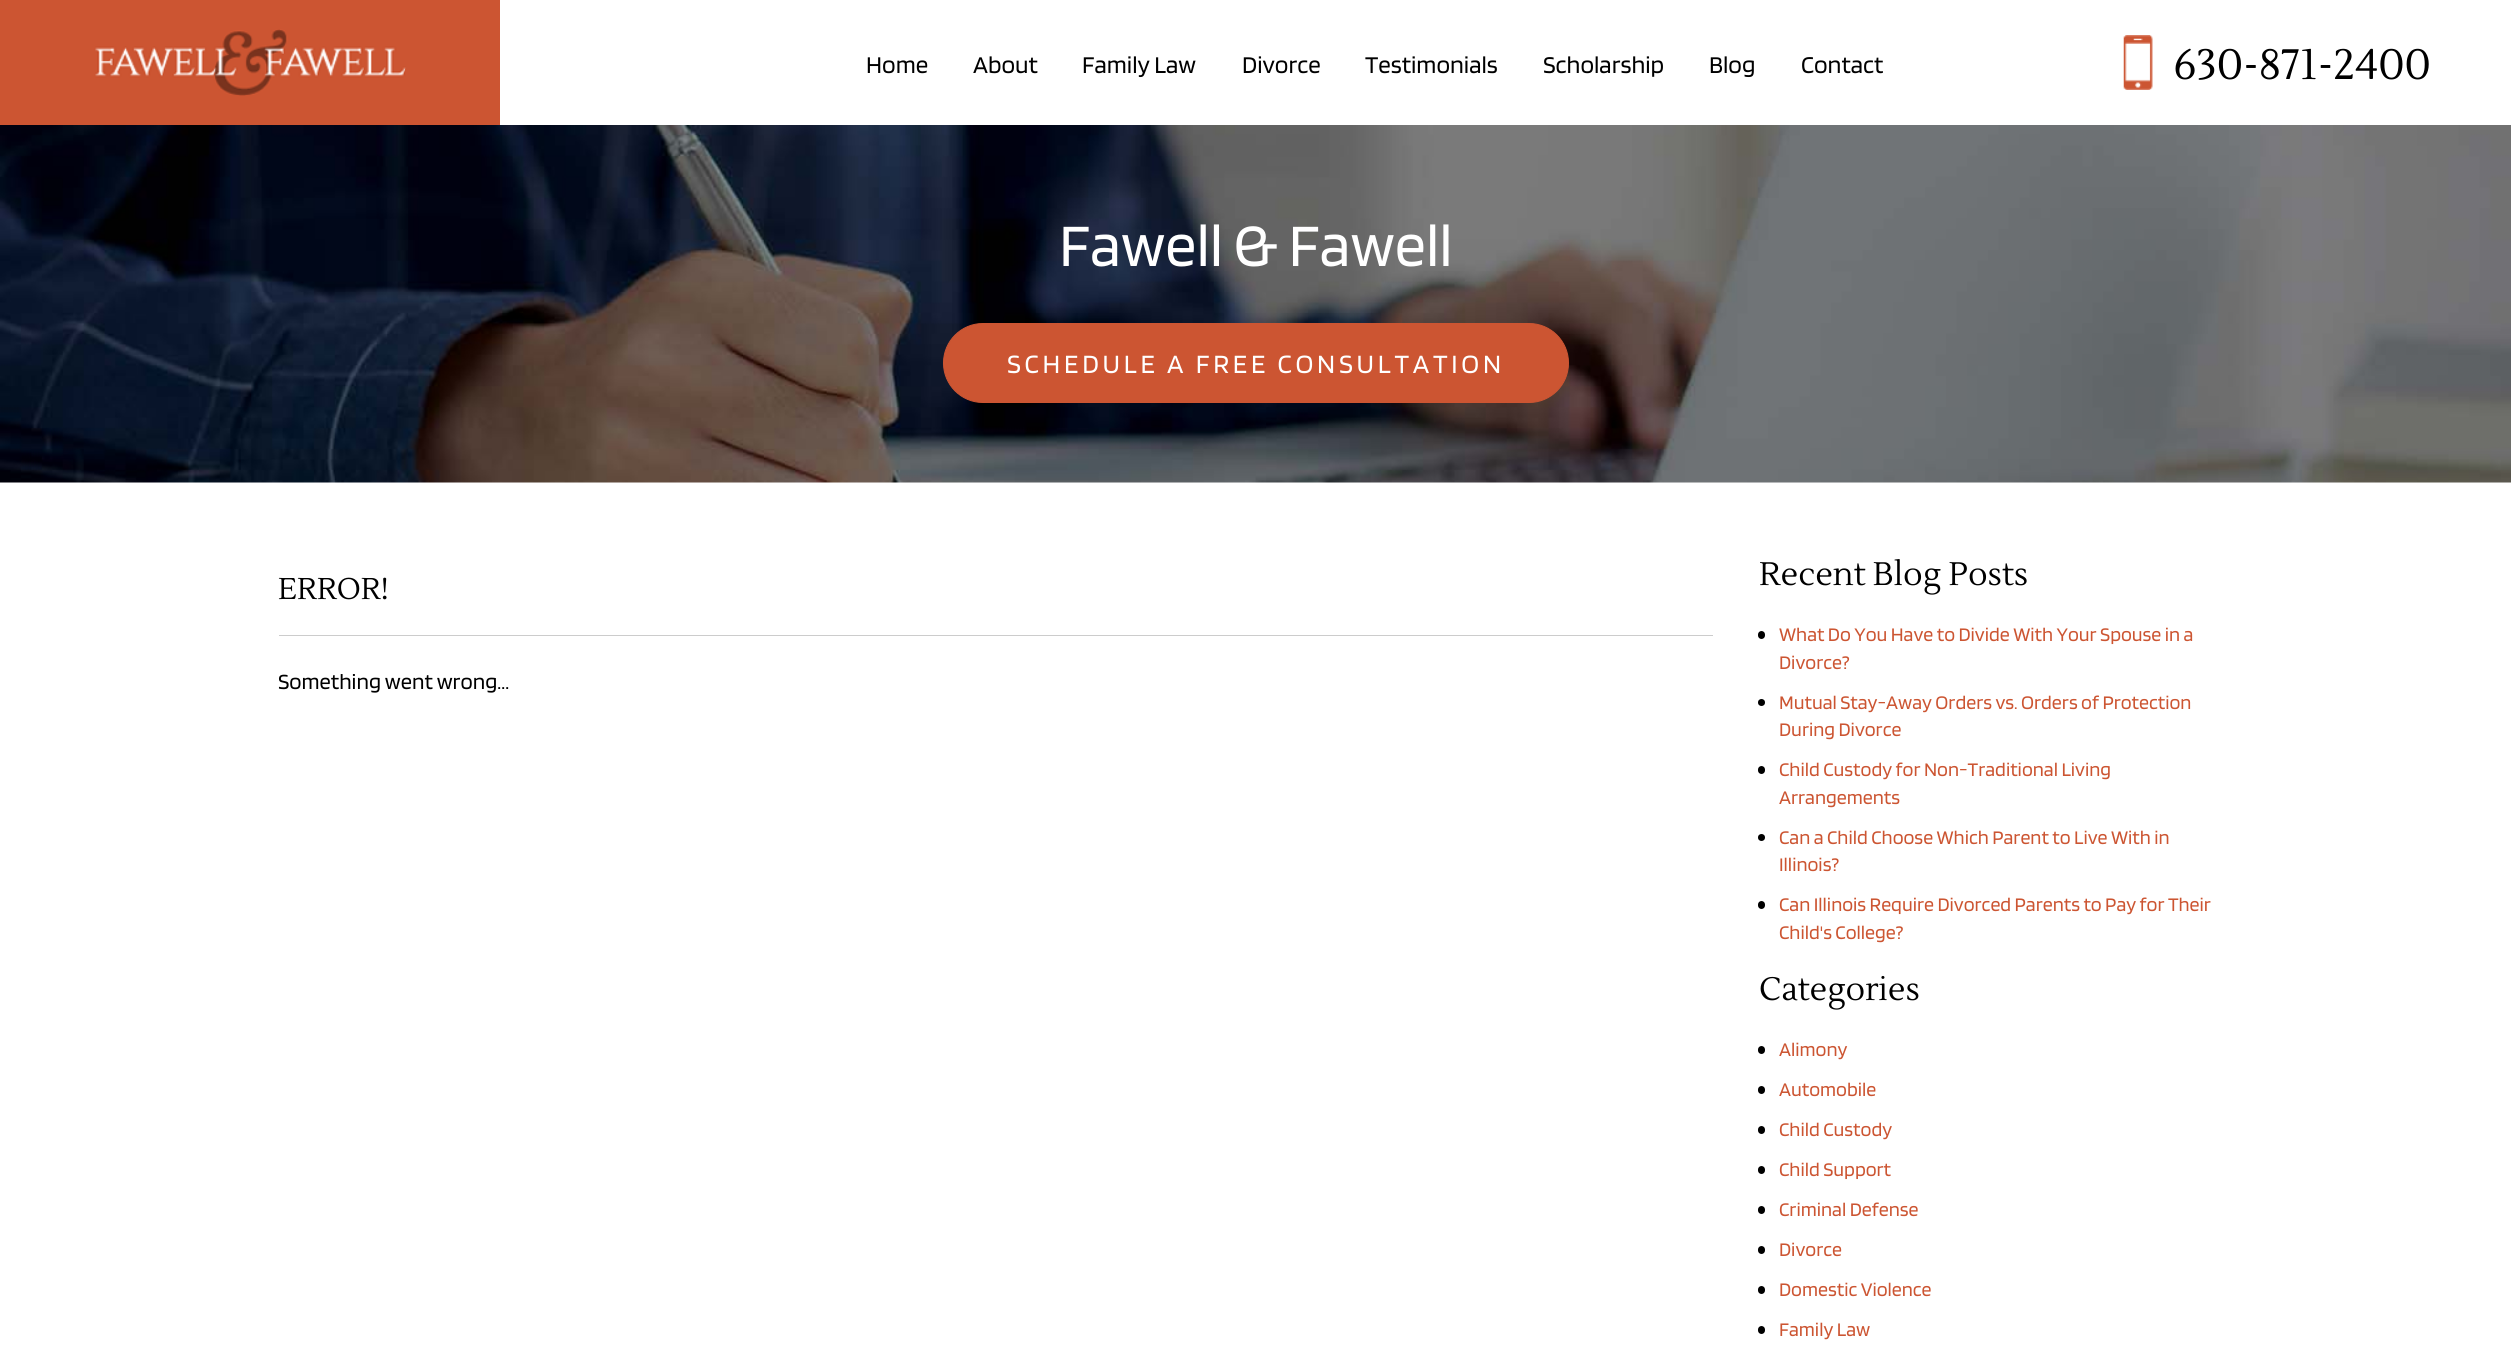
#include <cairo/cairo.h>
#include <math.h>
#include <stddef.h>


static void draw_spaced(cairo_t *cr, double x, double y, const char *s, double letter, double word) {
  cairo_move_to(cr, x, y);
  while (*s) {
    char ch[5] = {0};
    int n = 0;
    do ch[n++] = *s++; while ((*s & 0xC0) == 0x80);
    cairo_show_text(cr, ch);
    cairo_rel_move_to(cr, letter + word * (*ch == ' '), 0);
  }
}

static void rounded_rect(cairo_t *cr, double x, double y, double w, double h, double r) {
  cairo_new_sub_path(cr);
  cairo_arc(cr, x + w - r, y + h - r, r, 0, M_PI / 2);
  cairo_arc(cr, x + r, y + h - r, r, M_PI / 2, M_PI);
  cairo_arc(cr, x + r, y + r, r, M_PI, 1.5 * M_PI);
  cairo_arc(cr, x + w - r, y + r, r, 1.5 * M_PI, 2 * M_PI);
  cairo_close_path(cr);
}

static void draw_image(cairo_t *cr, const char *path, double x, double y, double w, double h) {
  cairo_surface_t *image = cairo_image_surface_create_from_png(path);
  cairo_save(cr);
  cairo_set_source_surface(cr, image, x, y);
  cairo_rectangle(cr, x, y, w, h);
  cairo_fill(cr);
  cairo_restore(cr);
  cairo_surface_destroy(image);
}

static void draw(cairo_t *cr) {
  cairo_set_source_rgb(cr, 1, 1, 1);
  cairo_paint(cr);
  cairo_set_source_rgb(cr, 204 / 255.0, 85 / 255.0, 50 / 255.0);
  cairo_rectangle(cr, 0, 0, 500, 125);
  cairo_fill(cr);
  draw_image(cr, "images/1.png", 95, 29, 311, 67);
  draw_image(cr, "images/2.png", 2123, 35, 30, 55);
  draw_image(cr, "images/3.png", 0, 125, 2511, 358);
  rounded_rect(cr, 943.5, 323.5, 625, 79, 39.5);
  cairo_fill_preserve(cr);
  cairo_set_line_width(cr, 1);
  cairo_stroke(cr);
  cairo_set_source_rgb(cr, 204 / 255.0, 204 / 255.0, 204 / 255.0);
  cairo_rectangle(cr, 279, 635, 1434, 1);
  cairo_fill(cr);
  cairo_set_source_rgb(cr, 0, 0, 0);
  rounded_rect(cr, 1758, 631, 7, 8, 3.5);
  cairo_fill(cr);
  cairo_arc(cr, 1761.5, 702.5, 3.5, 0, 2 * M_PI);
  cairo_fill(cr);
  rounded_rect(cr, 1758, 766, 7, 8, 3.5);
  cairo_fill(cr);
  cairo_arc(cr, 1761.5, 837.5, 3.5, 0, 2 * M_PI);
  cairo_fill(cr);
  rounded_rect(cr, 1758, 901, 7, 8, 3.5);
  cairo_fill(cr);
  rounded_rect(cr, 1758, 1046, 7, 8, 3.5);
  cairo_fill(cr);
  rounded_rect(cr, 1758, 1086, 7, 8, 3.5);
  cairo_fill(cr);
  rounded_rect(cr, 1758, 1126, 7, 8, 3.5);
  cairo_fill(cr);
  rounded_rect(cr, 1758, 1166, 7, 8, 3.5);
  cairo_fill(cr);
  rounded_rect(cr, 1758, 1206, 7, 8, 3.5);
  cairo_fill(cr);
  rounded_rect(cr, 1758, 1246, 7, 8, 3.5);
  cairo_fill(cr);
  rounded_rect(cr, 1758, 1286, 7, 8, 3.5);
  cairo_fill(cr);
  rounded_rect(cr, 1758, 1326, 7, 8, 3.5);
  cairo_fill(cr);
  cairo_select_font_face(cr, "Blinker", CAIRO_FONT_SLANT_NORMAL, CAIRO_FONT_WEIGHT_NORMAL);
  cairo_set_font_size(cr, 25);
  cairo_move_to(cr, 866, 73);
  cairo_show_text(cr, "Home");
  cairo_move_to(cr, 973, 73);
  cairo_show_text(cr, "About");
  cairo_move_to(cr, 1082, 73);
  cairo_show_text(cr, "Family Law");
  cairo_move_to(cr, 1242, 73);
  cairo_show_text(cr, "Divorce");
  cairo_move_to(cr, 1365, 73);
  cairo_show_text(cr, "Testimonials");
  cairo_move_to(cr, 1543, 73);
  cairo_show_text(cr, "Scholarship");
  cairo_move_to(cr, 1709, 73);
  cairo_show_text(cr, "Blog");
  cairo_move_to(cr, 1801, 73);
  cairo_show_text(cr, "Contact");
  cairo_select_font_face(cr, "Lustria", CAIRO_FONT_SLANT_NORMAL, CAIRO_FONT_WEIGHT_NORMAL);
  cairo_set_font_size(cr, 42.5);
  cairo_move_to(cr, 2173, 79);
  cairo_show_text(cr, "630-871-2400");
  cairo_select_font_face(cr, "Blinker", CAIRO_FONT_SLANT_NORMAL, CAIRO_FONT_WEIGHT_NORMAL);
  cairo_set_font_size(cr, 62.5);
  cairo_set_source_rgb(cr, 1, 1, 1);
  cairo_move_to(cr, 1059, 266);
  cairo_show_text(cr, "Fawell & Fawell");
  cairo_set_font_size(cr, 27.5);
  draw_spaced(cr, 1007, 373, "SCHEDULE A FREE CONSULTATION", 3.75, 0);
  cairo_select_font_face(cr, "Lustria", CAIRO_FONT_SLANT_NORMAL, CAIRO_FONT_WEIGHT_NORMAL);
  cairo_set_font_size(cr, 30);
  cairo_set_source_rgb(cr, 0, 0, 0);
  cairo_move_to(cr, 278, 599);
  cairo_show_text(cr, "ERROR!");
  cairo_select_font_face(cr, "Blinker", CAIRO_FONT_SLANT_NORMAL, CAIRO_FONT_WEIGHT_NORMAL);
  cairo_set_font_size(cr, 22.5);
  cairo_move_to(cr, 278, 689);
  cairo_show_text(cr, "Something went wrong...");
  cairo_select_font_face(cr, "Lustria", CAIRO_FONT_SLANT_NORMAL, CAIRO_FONT_WEIGHT_NORMAL);
  cairo_set_font_size(cr, 32.5);
  cairo_move_to(cr, 1759, 585);
  cairo_show_text(cr, "Recent Blog Posts");
  cairo_select_font_face(cr, "Blinker", CAIRO_FONT_SLANT_NORMAL, CAIRO_FONT_WEIGHT_NORMAL);
  cairo_set_font_size(cr, 20);
  cairo_set_source_rgb(cr, 204 / 255.0, 85 / 255.0, 50 / 255.0);
  cairo_move_to(cr, 1779, 641);
  cairo_show_text(cr, "What Do You Have to Divide With Your Spouse in a");
  cairo_move_to(cr, 1779, 669);
  cairo_show_text(cr, "Divorce?");
  cairo_move_to(cr, 1779, 709);
  cairo_show_text(cr, "Mutual Stay-Away Orders vs. Orders of Protection");
  cairo_move_to(cr, 1779, 736);
  cairo_show_text(cr, "During Divorce");
  cairo_move_to(cr, 1779, 776);
  cairo_show_text(cr, "Child Custody for Non-Traditional Living");
  cairo_move_to(cr, 1779, 804);
  cairo_show_text(cr, "Arrangements");
  cairo_move_to(cr, 1779, 844);
  cairo_show_text(cr, "Can a Child Choose Which Parent to Live With in");
  cairo_move_to(cr, 1779, 871);
  cairo_show_text(cr, "Illinois?");
  cairo_move_to(cr, 1779, 911);
  cairo_show_text(cr, "Can Illinois Require Divorced Parents to Pay for Their");
  cairo_move_to(cr, 1779, 939);
  cairo_show_text(cr, "Child's College?");
  cairo_select_font_face(cr, "Lustria", CAIRO_FONT_SLANT_NORMAL, CAIRO_FONT_WEIGHT_NORMAL);
  cairo_set_font_size(cr, 32.5);
  cairo_set_source_rgb(cr, 0, 0, 0);
  cairo_move_to(cr, 1759, 1000);
  cairo_show_text(cr, "Categories");
  cairo_select_font_face(cr, "Blinker", CAIRO_FONT_SLANT_NORMAL, CAIRO_FONT_WEIGHT_NORMAL);
  cairo_set_font_size(cr, 20);
  cairo_set_source_rgb(cr, 204 / 255.0, 85 / 255.0, 50 / 255.0);
  cairo_move_to(cr, 1779, 1056);
  cairo_show_text(cr, "Alimony");
  cairo_move_to(cr, 1779, 1096);
  cairo_show_text(cr, "Automobile");
  cairo_move_to(cr, 1779, 1136);
  cairo_show_text(cr, "Child Custody");
  cairo_move_to(cr, 1779, 1176);
  cairo_show_text(cr, "Child Support");
  cairo_move_to(cr, 1779, 1216);
  cairo_show_text(cr, "Criminal Defense");
  cairo_move_to(cr, 1779, 1256);
  cairo_show_text(cr, "Divorce");
  cairo_move_to(cr, 1779, 1296);
  cairo_show_text(cr, "Domestic Violence");
  cairo_move_to(cr, 1779, 1336);
  cairo_show_text(cr, "Family Law");
}

int main(void) {
  cairo_surface_t *surface = cairo_image_surface_create(CAIRO_FORMAT_RGB24, 2511, 1360);
  cairo_t *cr = cairo_create(surface);
  cairo_font_options_t *options = cairo_font_options_create();
  cairo_font_options_set_hint_metrics(options, CAIRO_HINT_METRICS_OFF);
  cairo_font_options_set_hint_style(options, CAIRO_HINT_STYLE_NONE);
  cairo_set_font_options(cr, options);
  cairo_set_miter_limit(cr, 4);
  draw(cr);
  cairo_surface_write_to_png(surface, "out.png");
  cairo_font_options_destroy(options);
  cairo_destroy(cr);
  cairo_surface_destroy(surface);
  return 0;
}
